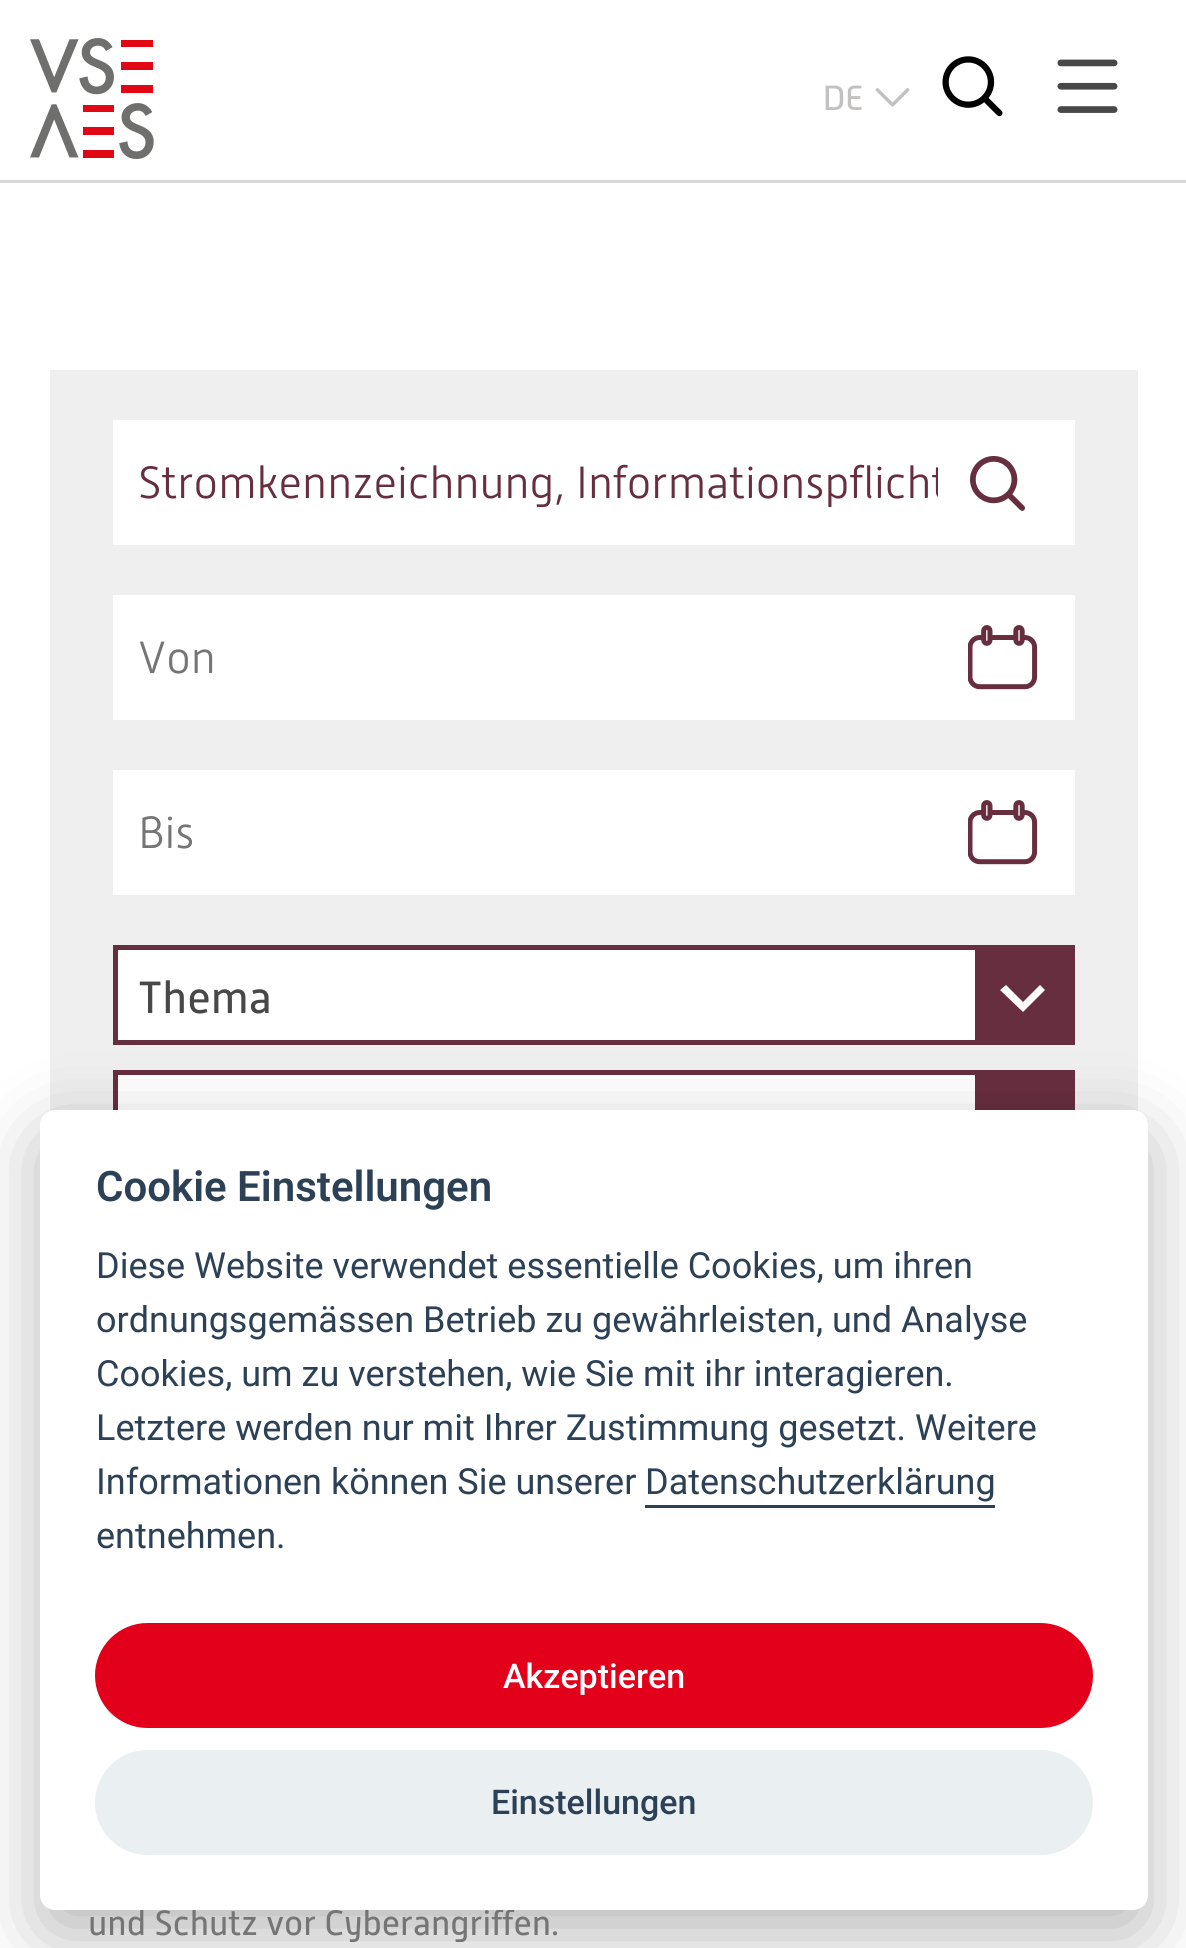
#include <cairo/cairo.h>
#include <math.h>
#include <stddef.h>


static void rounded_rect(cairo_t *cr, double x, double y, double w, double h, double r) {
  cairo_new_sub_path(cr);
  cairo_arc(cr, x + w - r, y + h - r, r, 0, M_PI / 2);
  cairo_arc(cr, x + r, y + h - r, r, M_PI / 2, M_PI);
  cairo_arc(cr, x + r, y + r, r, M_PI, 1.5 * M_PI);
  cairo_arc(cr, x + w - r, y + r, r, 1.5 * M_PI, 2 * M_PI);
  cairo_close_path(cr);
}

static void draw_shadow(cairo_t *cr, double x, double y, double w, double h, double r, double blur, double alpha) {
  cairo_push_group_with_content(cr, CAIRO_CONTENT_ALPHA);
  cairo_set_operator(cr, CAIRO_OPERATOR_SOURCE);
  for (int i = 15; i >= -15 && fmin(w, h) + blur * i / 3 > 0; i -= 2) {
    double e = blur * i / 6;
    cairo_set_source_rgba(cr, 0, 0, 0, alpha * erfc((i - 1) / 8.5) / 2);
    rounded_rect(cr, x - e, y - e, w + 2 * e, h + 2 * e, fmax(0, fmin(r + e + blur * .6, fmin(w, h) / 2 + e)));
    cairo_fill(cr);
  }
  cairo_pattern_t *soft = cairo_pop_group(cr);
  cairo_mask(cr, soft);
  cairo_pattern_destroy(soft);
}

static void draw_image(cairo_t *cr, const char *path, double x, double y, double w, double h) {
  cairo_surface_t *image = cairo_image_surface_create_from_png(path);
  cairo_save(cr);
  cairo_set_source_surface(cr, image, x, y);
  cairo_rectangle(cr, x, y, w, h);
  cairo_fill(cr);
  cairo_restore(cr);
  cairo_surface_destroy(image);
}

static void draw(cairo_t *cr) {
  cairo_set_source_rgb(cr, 1, 1, 1);
  cairo_paint(cr);
  draw_image(cr, "images/1.png", 30, 38, 124, 121);
  draw_image(cr, "images/2.png", 1057, 59, 61, 54);
  draw_image(cr, "images/3.png", 825, 85, 37, 25);
  draw_image(cr, "images/4.png", 875, 88, 35, 19);
  draw_image(cr, "images/5.png", 942, 56, 61, 61);
  cairo_set_source_rgb(cr, 216 / 255.0, 216 / 255.0, 216 / 255.0);
  cairo_rectangle(cr, 0, 180, 1186, 3);
  cairo_fill(cr);
  cairo_set_source_rgb(cr, 239 / 255.0, 239 / 255.0, 239 / 255.0);
  cairo_rectangle(cr, 50, 370, 1088, 741);
  cairo_fill(cr);
  cairo_set_source_rgb(cr, 1, 1, 1);
  cairo_rectangle(cr, 113, 420, 962, 125);
  cairo_fill(cr);
  draw_image(cr, "images/6.png", 970, 456, 55, 55);
  cairo_rectangle(cr, 113, 595, 962, 125);
  cairo_fill(cr);
  draw_image(cr, "images/7.png", 968, 625, 70, 65);
  cairo_rectangle(cr, 113, 770, 962, 125);
  cairo_fill(cr);
  draw_image(cr, "images/7.png", 968, 800, 70, 65);
  cairo_rectangle(cr, 118, 950, 857, 90);
  cairo_fill(cr);
  cairo_rectangle(cr, 115.5, 947.5, 957, 95);
  cairo_set_source_rgb(cr, 103 / 255.0, 46 / 255.0, 64 / 255.0);
  cairo_set_line_width(cr, 5);
  cairo_stroke(cr);
  cairo_rectangle(cr, 975, 950, 95, 90);
  cairo_fill(cr);
  cairo_set_source_rgb(cr, 1, 1, 1);
  cairo_new_path(cr);
  cairo_move_to(cr, 1040, 985);
  cairo_line_to(cr, 1023, 1002);
  cairo_line_to(cr, 1006, 985);
  cairo_line_to(cr, 1000, 990);
  cairo_line_to(cr, 1023, 1012);
  cairo_line_to(cr, 1045, 990);
  cairo_close_path(cr);
  cairo_fill(cr);
  cairo_rectangle(cr, 118, 1075, 857, 35);
  cairo_fill(cr);
  cairo_rectangle(cr, 115.5, 1072.5, 957, 140);
  cairo_set_source_rgb(cr, 103 / 255.0, 46 / 255.0, 64 / 255.0);
  cairo_stroke(cr);
  cairo_rectangle(cr, 975, 1075, 95, 35);
  cairo_fill(cr);
  cairo_set_source_rgb(cr, 2 / 255.0, 2 / 255.0, 3 / 255.0);
  draw_shadow(cr, 40, 1135, 1108, 800, 15, 37.5, 0.28);
  cairo_save(cr);
  cairo_rectangle(cr, 138, 458, 800, 50);
  cairo_clip(cr);
  cairo_select_font_face(cr, "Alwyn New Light", CAIRO_FONT_SLANT_NORMAL, CAIRO_FONT_WEIGHT_NORMAL);
  cairo_set_font_size(cr, 45);
  cairo_set_source_rgb(cr, 103 / 255.0, 46 / 255.0, 64 / 255.0);
  cairo_move_to(cr, 138, 498);
  cairo_show_text(cr, "Stromkennzeichnung, Informationspflicht");
  cairo_restore(cr);
  cairo_select_font_face(cr, "Alwyn New Light", CAIRO_FONT_SLANT_NORMAL, CAIRO_FONT_WEIGHT_NORMAL);
  cairo_set_font_size(cr, 45);
  cairo_set_source_rgb(cr, 117 / 255.0, 117 / 255.0, 117 / 255.0);
  cairo_move_to(cr, 138, 673);
  cairo_show_text(cr, "Von");
  cairo_move_to(cr, 138, 848);
  cairo_show_text(cr, "Bis");
  cairo_select_font_face(cr, "Alwyn New", CAIRO_FONT_SLANT_NORMAL, CAIRO_FONT_WEIGHT_NORMAL);
  cairo_set_source_rgb(cr, 72 / 255.0, 72 / 255.0, 72 / 255.0);
  cairo_move_to(cr, 138, 1013);
  cairo_show_text(cr, "Thema");
  cairo_set_font_size(cr, 35);
  cairo_set_source_rgb(cr, 117 / 255.0, 117 / 255.0, 117 / 255.0);
  cairo_move_to(cr, 88, 1935);
  cairo_show_text(cr, "und Schutz vor Cyberangriffen.");
  cairo_set_source_rgb(cr, 1, 1, 1);
  rounded_rect(cr, 40, 1110, 1108, 800, 15);
  cairo_fill(cr);
  cairo_select_font_face(cr, "Roboto SemiBold", CAIRO_FONT_SLANT_NORMAL, CAIRO_FONT_WEIGHT_NORMAL);
  cairo_set_font_size(cr, 42);
  cairo_set_source_rgb(cr, 45 / 255.0, 65 / 255.0, 86 / 255.0);
  cairo_move_to(cr, 96, 1201);
  cairo_show_text(cr, "Cookie Einstellungen");
  cairo_select_font_face(cr, "Roboto", CAIRO_FONT_SLANT_NORMAL, CAIRO_FONT_WEIGHT_NORMAL);
  cairo_set_font_size(cr, 36);
  cairo_move_to(cr, 96, 1278);
  cairo_show_text(cr, "Diese Website verwendet essentielle Cookies, um ihren");
  cairo_move_to(cr, 96, 1332);
  cairo_show_text(cr, "ordnungsgemässen Betrieb zu gewährleisten, und Analyse");
  cairo_move_to(cr, 96, 1386);
  cairo_show_text(cr, "Cookies, um zu verstehen, wie Sie mit ihr interagieren.");
  cairo_move_to(cr, 96, 1440);
  cairo_show_text(cr, "Letztere werden nur mit Ihrer Zustimmung gesetzt. Weitere");
  cairo_move_to(cr, 96, 1494);
  cairo_show_text(cr, "Informationen können Sie unserer");
  cairo_move_to(cr, 645, 1494);
  cairo_show_text(cr, "Datenschutzerklärung");
  cairo_rectangle(cr, 645, 1505, 350, 3);
  cairo_fill(cr);
  cairo_move_to(cr, 96, 1548);
  cairo_show_text(cr, "entnehmen.");
  cairo_set_source_rgb(cr, 226 / 255.0, 0, 26 / 255.0);
  rounded_rect(cr, 95, 1623, 998, 105, 52.5);
  cairo_fill(cr);
  cairo_select_font_face(cr, "Roboto Medium", CAIRO_FONT_SLANT_NORMAL, CAIRO_FONT_WEIGHT_NORMAL);
  cairo_set_font_size(cr, 34);
  cairo_set_source_rgb(cr, 1, 1, 1);
  cairo_move_to(cr, 503, 1688);
  cairo_show_text(cr, "Akzeptieren");
  cairo_set_source_rgb(cr, 234 / 255.0, 239 / 255.0, 242 / 255.0);
  rounded_rect(cr, 95, 1750, 998, 105, 52.5);
  cairo_fill(cr);
  cairo_set_source_rgb(cr, 45 / 255.0, 65 / 255.0, 86 / 255.0);
  cairo_move_to(cr, 491, 1814);
  cairo_show_text(cr, "Einstellungen");
}

int main(void) {
  cairo_surface_t *surface = cairo_image_surface_create(CAIRO_FORMAT_RGB24, 1186, 1948);
  cairo_t *cr = cairo_create(surface);
  cairo_font_options_t *options = cairo_font_options_create();
  cairo_font_options_set_hint_metrics(options, CAIRO_HINT_METRICS_OFF);
  cairo_font_options_set_hint_style(options, CAIRO_HINT_STYLE_NONE);
  cairo_set_font_options(cr, options);
  cairo_set_miter_limit(cr, 4);
  draw(cr);
  cairo_surface_write_to_png(surface, "out.png");
  cairo_font_options_destroy(options);
  cairo_destroy(cr);
  cairo_surface_destroy(surface);
  return 0;
}
